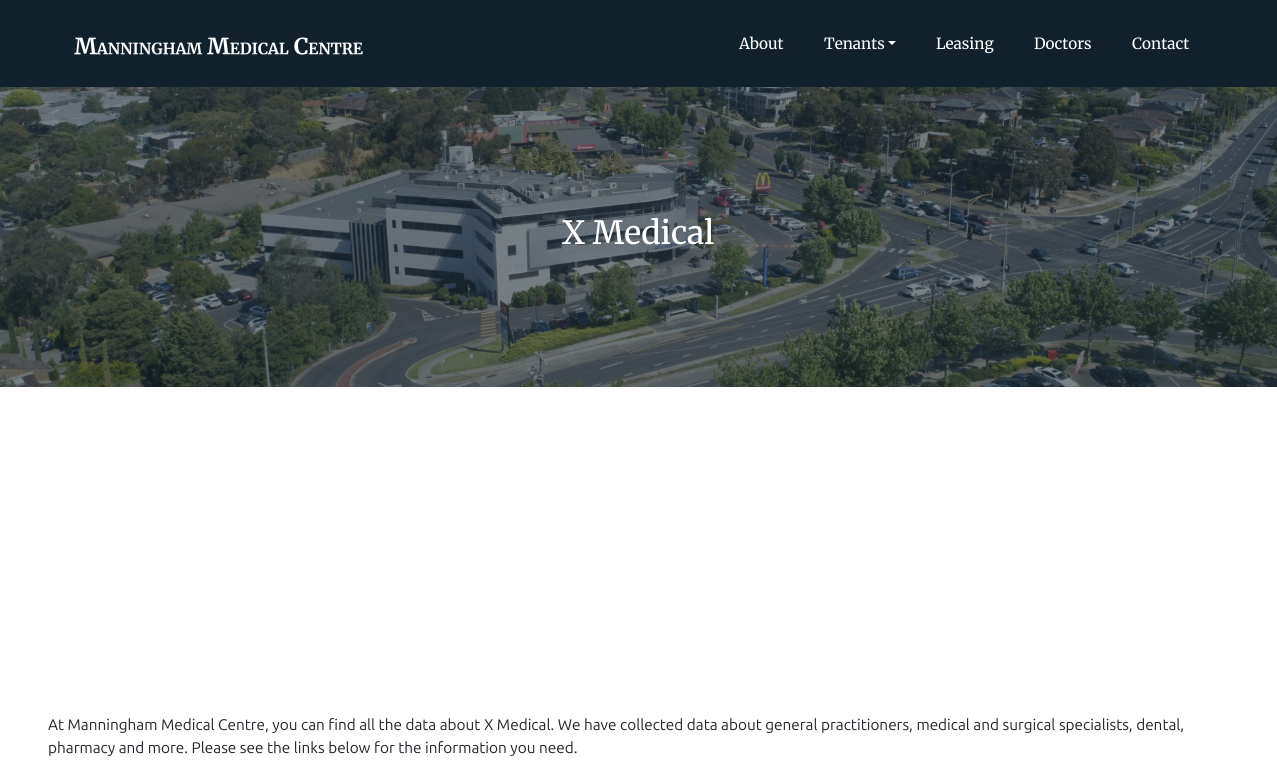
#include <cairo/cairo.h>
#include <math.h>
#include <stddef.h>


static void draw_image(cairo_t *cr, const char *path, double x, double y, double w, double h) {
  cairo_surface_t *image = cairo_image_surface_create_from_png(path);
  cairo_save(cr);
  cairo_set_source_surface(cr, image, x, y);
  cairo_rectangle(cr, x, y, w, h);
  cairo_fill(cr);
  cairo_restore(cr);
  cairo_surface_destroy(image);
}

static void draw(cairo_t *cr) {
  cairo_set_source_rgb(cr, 1, 1, 1);
  cairo_paint(cr);
  cairo_set_source_rgb(cr, 16 / 255.0, 33 / 255.0, 43 / 255.0);
  cairo_rectangle(cr, 0, 0, 1277, 87);
  cairo_fill(cr);
  draw_image(cr, "images/1.png", 74, 37, 289, 18);
  cairo_set_source_rgb(cr, 1, 1, 1);
  cairo_new_path(cr);
  cairo_move_to(cr, 888, 41);
  cairo_line_to(cr, 896, 41);
  cairo_line_to(cr, 892, 45);
  cairo_close_path(cr);
  cairo_fill(cr);
  draw_image(cr, "images/2.png", 0, 87, 1277, 300);
  cairo_select_font_face(cr, "Merriweather", CAIRO_FONT_SLANT_NORMAL, CAIRO_FONT_WEIGHT_NORMAL);
  cairo_set_font_size(cr, 15.35);
  cairo_move_to(cr, 739, 49);
  cairo_show_text(cr, "About");
  cairo_move_to(cr, 824, 49);
  cairo_show_text(cr, "Tenants");
  cairo_move_to(cr, 936, 49);
  cairo_show_text(cr, "Leasing");
  cairo_move_to(cr, 1034, 49);
  cairo_show_text(cr, "Doctors");
  cairo_move_to(cr, 1132, 49);
  cairo_show_text(cr, "Contact");
  cairo_select_font_face(cr, "Merriweather Medium", CAIRO_FONT_SLANT_NORMAL, CAIRO_FONT_WEIGHT_NORMAL);
  cairo_set_font_size(cr, 32);
  cairo_move_to(cr, 562, 244);
  cairo_show_text(cr, "X Medical");
  cairo_select_font_face(cr, "Ubuntu", CAIRO_FONT_SLANT_NORMAL, CAIRO_FONT_WEIGHT_NORMAL);
  cairo_set_font_size(cr, 15.35);
  cairo_set_source_rgb(cr, 33 / 255.0, 37 / 255.0, 41 / 255.0);
  cairo_move_to(cr, 48, 730);
  cairo_show_text(cr, "At Manningham Medical Centre, you can find all the data about X Medical. We have collected data about general practitioners, medical and surgical specialists, dental,");
  cairo_move_to(cr, 48, 753);
  cairo_show_text(cr, "pharmacy and more. Please see the links below for the information you need.");
}

int main(void) {
  cairo_surface_t *surface = cairo_image_surface_create(CAIRO_FORMAT_RGB24, 1277, 767);
  cairo_t *cr = cairo_create(surface);
  cairo_font_options_t *options = cairo_font_options_create();
  cairo_font_options_set_hint_metrics(options, CAIRO_HINT_METRICS_OFF);
  cairo_font_options_set_hint_style(options, CAIRO_HINT_STYLE_NONE);
  cairo_set_font_options(cr, options);
  cairo_set_miter_limit(cr, 4);
  draw(cr);
  cairo_surface_write_to_png(surface, "out.png");
  cairo_font_options_destroy(options);
  cairo_destroy(cr);
  cairo_surface_destroy(surface);
  return 0;
}
